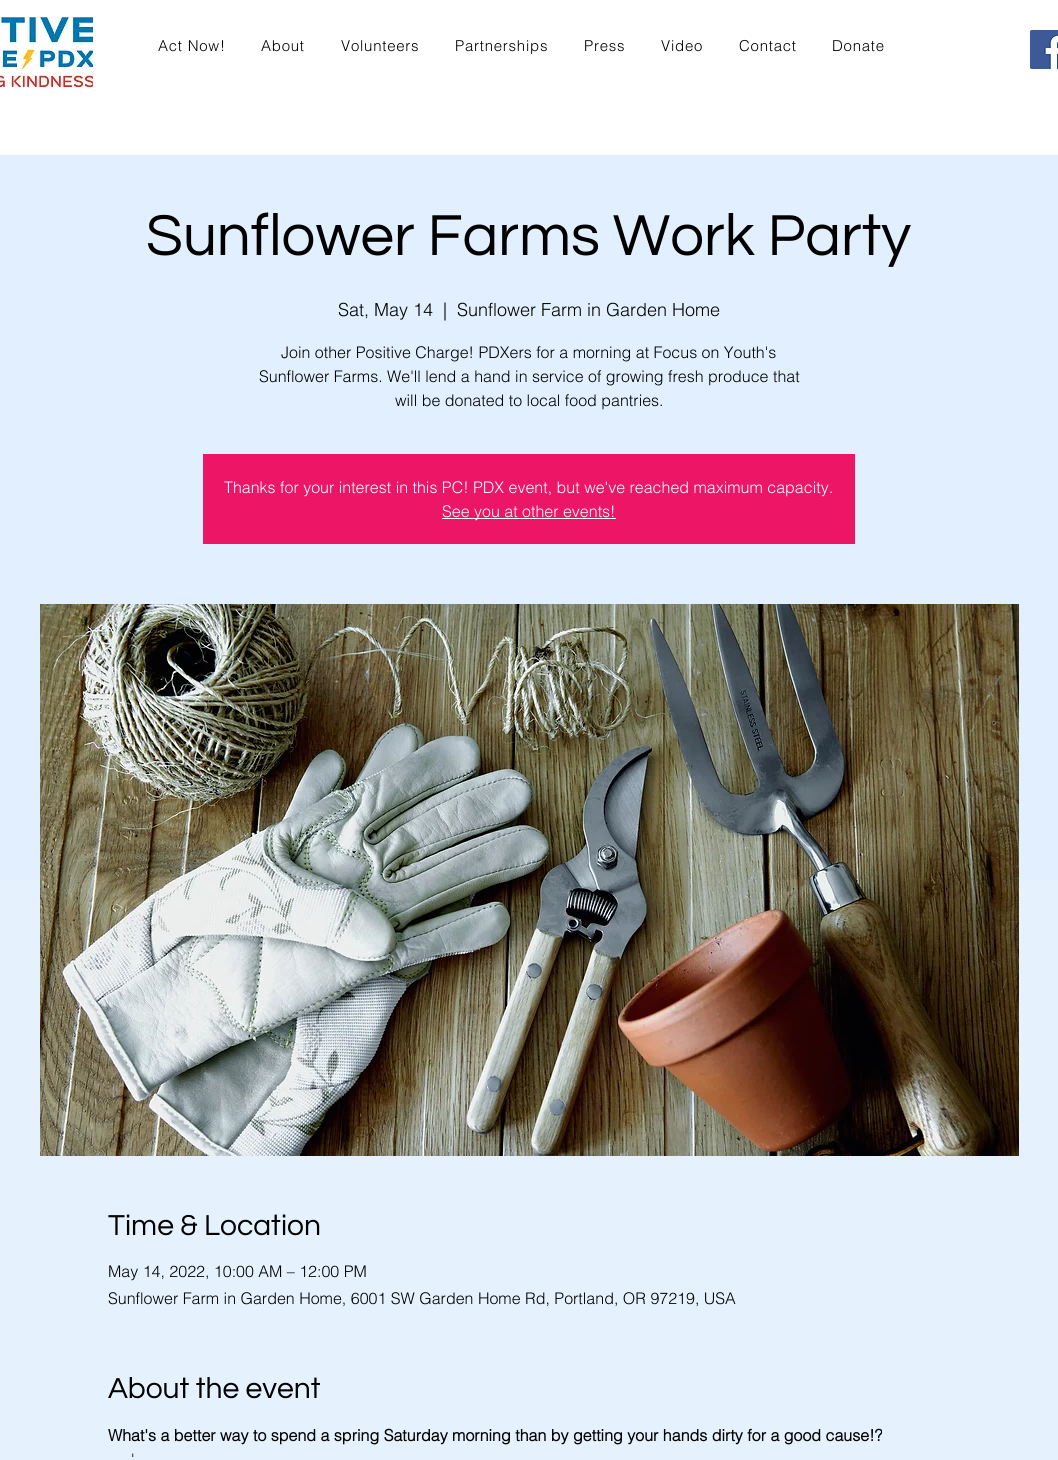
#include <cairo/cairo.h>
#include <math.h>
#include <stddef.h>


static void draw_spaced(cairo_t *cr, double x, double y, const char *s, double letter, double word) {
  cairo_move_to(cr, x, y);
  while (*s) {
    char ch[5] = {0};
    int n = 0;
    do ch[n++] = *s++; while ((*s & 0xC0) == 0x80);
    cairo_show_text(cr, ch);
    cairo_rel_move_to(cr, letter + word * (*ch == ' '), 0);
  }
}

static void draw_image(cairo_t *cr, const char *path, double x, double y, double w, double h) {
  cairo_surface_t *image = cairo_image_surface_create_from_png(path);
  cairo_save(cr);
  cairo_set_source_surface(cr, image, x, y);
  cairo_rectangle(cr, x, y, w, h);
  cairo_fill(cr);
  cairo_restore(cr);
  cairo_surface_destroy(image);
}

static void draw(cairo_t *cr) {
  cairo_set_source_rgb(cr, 229 / 255.0, 242 / 255.0, 253 / 255.0);
  cairo_paint(cr);
  cairo_set_source_rgb(cr, 1, 1, 1);
  cairo_rectangle(cr, 0, 0, 1058, 155);
  cairo_fill(cr);
  draw_image(cr, "images/1.png", 0, 17, 93, 73);
  draw_image(cr, "images/2.png", 1030, 30, 28, 39);
  cairo_set_source_rgb(cr, 225 / 255.0, 239 / 255.0, 254 / 255.0);
  cairo_rectangle(cr, 0, 155, 1058, 725);
  cairo_fill(cr);
  cairo_set_source_rgb(cr, 237 / 255.0, 21 / 255.0, 102 / 255.0);
  cairo_rectangle(cr, 203, 454, 652, 90);
  cairo_fill(cr);
  cairo_set_source_rgb(cr, 1, 1, 1);
  cairo_rectangle(cr, 442, 518, 174, 1);
  cairo_fill(cr);
  draw_image(cr, "images/3.png", 40, 604, 979, 552);
  cairo_select_font_face(cr, "helvetica Light", CAIRO_FONT_SLANT_NORMAL, CAIRO_FONT_WEIGHT_NORMAL);
  cairo_set_font_size(cr, 15);
  cairo_set_source_rgb(cr, 0, 0, 0);
  draw_spaced(cr, 158, 51, "Act Now!", 0.75, 0);
  draw_spaced(cr, 261, 51, "About", 0.75, 0);
  draw_spaced(cr, 341, 51, "Volunteers", 0.75, 0);
  draw_spaced(cr, 455, 51, "Partnerships", 0.75, 0);
  draw_spaced(cr, 584, 51, "Press", 0.75, 0);
  draw_spaced(cr, 661, 51, "Video", 0.75, 0);
  draw_spaced(cr, 739, 51, "Contact", 0.75, 0);
  draw_spaced(cr, 832, 51, "Donate", 0.75, 0);
  cairo_select_font_face(cr, "Questrial", CAIRO_FONT_SLANT_NORMAL, CAIRO_FONT_WEIGHT_NORMAL);
  cairo_set_font_size(cr, 60);
  cairo_move_to(cr, 146, 255);
  cairo_show_text(cr, "Sunflower Farms Work Party");
  cairo_select_font_face(cr, "helvetica Light", CAIRO_FONT_SLANT_NORMAL, CAIRO_FONT_WEIGHT_NORMAL);
  cairo_set_font_size(cr, 18);
  cairo_move_to(cr, 338, 316);
  cairo_show_text(cr, "Sat, May 14");
  cairo_move_to(cr, 443, 316);
  cairo_show_text(cr, "|");
  cairo_move_to(cr, 457, 316);
  cairo_show_text(cr, "Sunflower Farm in Garden Home");
  cairo_set_font_size(cr, 16);
  cairo_move_to(cr, 281, 358);
  cairo_show_text(cr, "Join other Positive Charge! PDXers for a morning at Focus on Youth's");
  cairo_move_to(cr, 259, 382);
  cairo_show_text(cr, "Sunflower Farms. We'll lend a hand in service of growing fresh produce that");
  cairo_move_to(cr, 395, 406);
  cairo_show_text(cr, "will be donated to local food pantries.");
  cairo_set_source_rgb(cr, 1, 1, 1);
  cairo_move_to(cr, 224, 493);
  cairo_show_text(cr, "Thanks for your interest in this PC! PDX event, but we've reached maximum capacity.");
  cairo_move_to(cr, 442, 517);
  cairo_show_text(cr, "See you at other events!");
  cairo_select_font_face(cr, "Questrial", CAIRO_FONT_SLANT_NORMAL, CAIRO_FONT_WEIGHT_NORMAL);
  cairo_set_font_size(cr, 30);
  cairo_set_source_rgb(cr, 0, 0, 0);
  cairo_move_to(cr, 108, 1235);
  cairo_show_text(cr, "Time & Location");
  cairo_select_font_face(cr, "helvetica Light", CAIRO_FONT_SLANT_NORMAL, CAIRO_FONT_WEIGHT_NORMAL);
  cairo_set_font_size(cr, 16);
  cairo_move_to(cr, 108, 1277);
  cairo_show_text(cr, "May 14, 2022, 10:00 AM – 12:00 PM");
  cairo_move_to(cr, 108, 1304);
  cairo_show_text(cr, "Sunflower Farm in Garden Home, 6001 SW Garden Home Rd, Portland, OR 97219, USA");
  cairo_select_font_face(cr, "Questrial", CAIRO_FONT_SLANT_NORMAL, CAIRO_FONT_WEIGHT_NORMAL);
  cairo_set_font_size(cr, 30);
  cairo_move_to(cr, 108, 1398);
  cairo_show_text(cr, "About the event");
  cairo_select_font_face(cr, "helvetica", CAIRO_FONT_SLANT_NORMAL, CAIRO_FONT_WEIGHT_BOLD);
  cairo_set_font_size(cr, 16);
  cairo_move_to(cr, 108, 1441);
  cairo_show_text(cr, "What's a better way to spend a spring Saturday morning than by getting your hands dirty for a good cause!?");
  cairo_select_font_face(cr, "helvetica Light", CAIRO_FONT_SLANT_NORMAL, CAIRO_FONT_WEIGHT_NORMAL);
  cairo_move_to(cr, 131, 1465);
  cairo_show_text(cr, "'");
}

int main(void) {
  cairo_surface_t *surface = cairo_image_surface_create(CAIRO_FORMAT_RGB24, 1058, 1460);
  cairo_t *cr = cairo_create(surface);
  cairo_font_options_t *options = cairo_font_options_create();
  cairo_font_options_set_hint_metrics(options, CAIRO_HINT_METRICS_OFF);
  cairo_font_options_set_hint_style(options, CAIRO_HINT_STYLE_NONE);
  cairo_set_font_options(cr, options);
  cairo_set_miter_limit(cr, 4);
  draw(cr);
  cairo_surface_write_to_png(surface, "out.png");
  cairo_font_options_destroy(options);
  cairo_destroy(cr);
  cairo_surface_destroy(surface);
  return 0;
}
